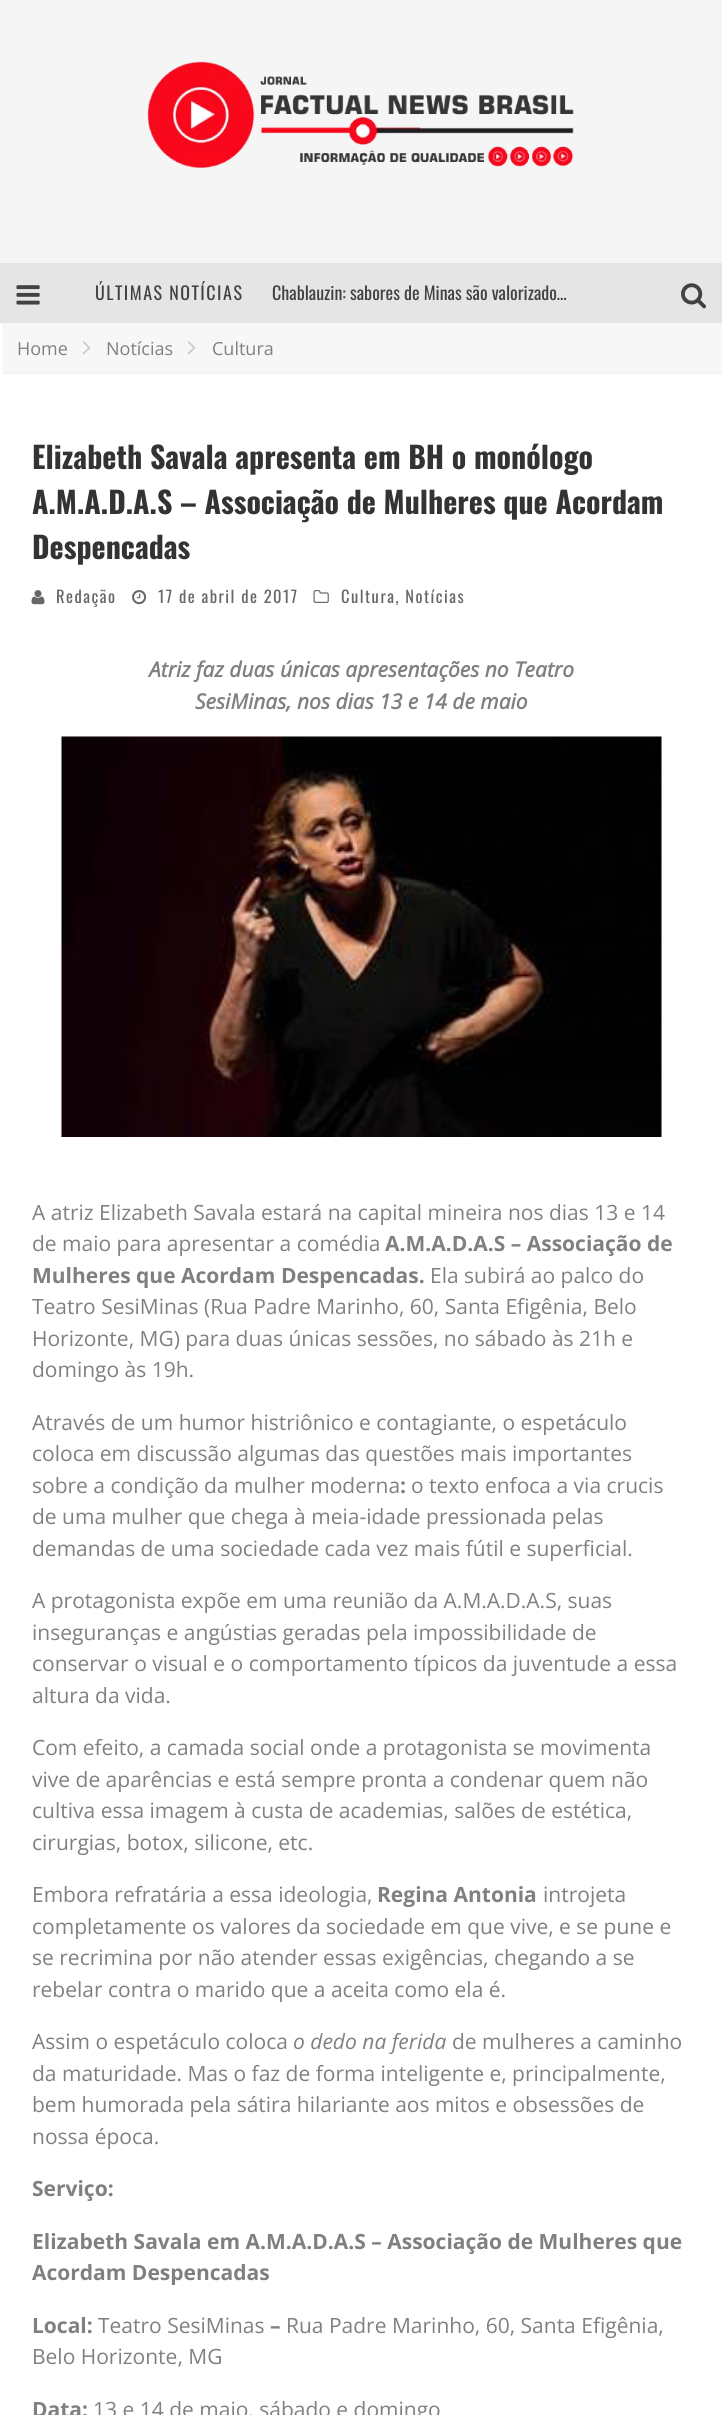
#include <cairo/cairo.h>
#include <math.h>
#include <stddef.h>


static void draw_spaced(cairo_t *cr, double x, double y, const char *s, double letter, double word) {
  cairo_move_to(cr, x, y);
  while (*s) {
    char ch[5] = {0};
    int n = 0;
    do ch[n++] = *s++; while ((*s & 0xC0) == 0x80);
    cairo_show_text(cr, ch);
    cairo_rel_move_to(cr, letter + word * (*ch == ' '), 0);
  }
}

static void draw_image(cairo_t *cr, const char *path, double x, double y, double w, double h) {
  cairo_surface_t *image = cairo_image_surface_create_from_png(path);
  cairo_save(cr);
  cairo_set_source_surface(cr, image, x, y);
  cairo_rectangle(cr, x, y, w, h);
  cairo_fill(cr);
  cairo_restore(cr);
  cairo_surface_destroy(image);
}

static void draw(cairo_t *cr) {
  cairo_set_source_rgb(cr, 1, 1, 1);
  cairo_paint(cr);
  cairo_set_source_rgb(cr, 245 / 255.0, 245 / 255.0, 245 / 255.0);
  cairo_rectangle(cr, 0, 0, 722, 324);
  cairo_fill(cr);
  draw_image(cr, "images/1.png", 147, 61, 427, 107);
  cairo_set_source_rgb(cr, 229 / 255.0, 229 / 255.0, 229 / 255.0);
  cairo_rectangle(cr, 0, 263, 722, 60);
  cairo_fill(cr);
  draw_image(cr, "images/2.png", 16, 285, 24, 20);
  draw_image(cr, "images/3.png", 681, 283, 25, 26);
  cairo_set_source_rgb(cr, 247 / 255.0, 247 / 255.0, 247 / 255.0);
  cairo_rectangle(cr, 2, 324, 720, 48);
  cairo_fill(cr);
  cairo_set_source_rgb(cr, 243 / 255.0, 243 / 255.0, 243 / 255.0);
  cairo_rectangle(cr, 2, 372, 720, 2);
  cairo_fill(cr);
  draw_image(cr, "images/4.png", 82, 341, 9, 14);
  draw_image(cr, "images/4.png", 187, 341, 9, 14);
  draw_image(cr, "images/5.png", 31, 590, 14, 15);
  draw_image(cr, "images/6.png", 132, 590, 15, 15);
  draw_image(cr, "images/7.png", 313, 590, 16, 13);
  draw_image(cr, "images/8.png", 61, 736, 601, 401);
  cairo_select_font_face(cr, "Oswald", CAIRO_FONT_SLANT_NORMAL, CAIRO_FONT_WEIGHT_NORMAL);
  cairo_set_font_size(cr, 18);
  cairo_set_source_rgb(cr, 66 / 255.0, 66 / 255.0, 66 / 255.0);
  draw_spaced(cr, 95, 300, "ÚLTIMAS NOTÍCIAS", 1.5, 0);
  cairo_move_to(cr, 272, 300);
  cairo_show_text(cr, "Chablauzin: sabores de Minas são valorizado…");
  cairo_select_font_face(cr, "Open Sans", CAIRO_FONT_SLANT_NORMAL, CAIRO_FONT_WEIGHT_NORMAL);
  cairo_set_source_rgb(cr, 128 / 255.0, 128 / 255.0, 128 / 255.0);
  cairo_move_to(cr, 17, 355);
  cairo_show_text(cr, "Home");
  cairo_move_to(cr, 106, 355);
  cairo_show_text(cr, "Notícias");
  cairo_move_to(cr, 212, 355);
  cairo_show_text(cr, "Cultura");
  cairo_select_font_face(cr, "Oswald", CAIRO_FONT_SLANT_NORMAL, CAIRO_FONT_WEIGHT_BOLD);
  cairo_set_font_size(cr, 30);
  cairo_set_source_rgb(cr, 51 / 255.0, 51 / 255.0, 51 / 255.0);
  cairo_move_to(cr, 32, 469);
  cairo_show_text(cr, "Elizabeth Savala apresenta em BH o monólogo");
  cairo_move_to(cr, 32, 514);
  cairo_show_text(cr, "A.M.A.D.A.S – Associação de Mulheres que Acordam");
  cairo_move_to(cr, 32, 559);
  cairo_show_text(cr, "Despencadas");
  cairo_select_font_face(cr, "Oswald", CAIRO_FONT_SLANT_NORMAL, CAIRO_FONT_WEIGHT_NORMAL);
  cairo_set_font_size(cr, 16.5);
  cairo_set_source_rgb(cr, 103 / 255.0, 103 / 255.0, 103 / 255.0);
  draw_spaced(cr, 56, 603, "Redação", 1.5, 0);
  draw_spaced(cr, 158, 603, "17 de abril de 2017", 1.5, 0);
  draw_spaced(cr, 341, 603, "Cultura, Notícias", 1.5, 0);
  cairo_select_font_face(cr, "Open Sans", CAIRO_FONT_SLANT_ITALIC, CAIRO_FONT_WEIGHT_BOLD);
  cairo_set_font_size(cr, 21);
  cairo_set_source_rgb(cr, 128 / 255.0, 128 / 255.0, 128 / 255.0);
  cairo_move_to(cr, 149, 677);
  cairo_show_text(cr, "Atriz faz duas únicas apresentações no Teatro");
  cairo_move_to(cr, 195, 709);
  cairo_show_text(cr, "SesiMinas, nos dias 13 e 14 de maio");
  cairo_select_font_face(cr, "Open Sans", CAIRO_FONT_SLANT_NORMAL, CAIRO_FONT_WEIGHT_NORMAL);
  cairo_move_to(cr, 32, 1220);
  cairo_show_text(cr, "A atriz Elizabeth Savala estará na capital mineira nos dias 13 e 14");
  cairo_move_to(cr, 32, 1251);
  cairo_show_text(cr, "de maio para apresentar a comédia");
  cairo_select_font_face(cr, "Open Sans", CAIRO_FONT_SLANT_NORMAL, CAIRO_FONT_WEIGHT_BOLD);
  cairo_move_to(cr, 385, 1251);
  cairo_show_text(cr, "A.M.A.D.A.S – Associação de");
  cairo_move_to(cr, 32, 1283);
  cairo_show_text(cr, "Mulheres que Acordam Despencadas.");
  cairo_select_font_face(cr, "Open Sans", CAIRO_FONT_SLANT_NORMAL, CAIRO_FONT_WEIGHT_NORMAL);
  cairo_move_to(cr, 430, 1283);
  cairo_show_text(cr, "Ela subirá ao palco do");
  cairo_move_to(cr, 32, 1314);
  cairo_show_text(cr, "Teatro SesiMinas (Rua Padre Marinho, 60, Santa Efigênia, Belo");
  cairo_move_to(cr, 32, 1346);
  cairo_show_text(cr, "Horizonte, MG) para duas únicas sessões, no sábado às 21h e");
  cairo_move_to(cr, 32, 1377);
  cairo_show_text(cr, "domingo às 19h.");
  cairo_move_to(cr, 32, 1430);
  cairo_show_text(cr, "Através de um humor histriônico e contagiante, o espetáculo");
  cairo_move_to(cr, 32, 1461);
  cairo_show_text(cr, "coloca em discussão algumas das questões mais importantes");
  cairo_move_to(cr, 32, 1493);
  cairo_show_text(cr, "sobre a condição da mulher moderna");
  cairo_select_font_face(cr, "Open Sans", CAIRO_FONT_SLANT_NORMAL, CAIRO_FONT_WEIGHT_BOLD);
  cairo_move_to(cr, 400, 1493);
  cairo_show_text(cr, ":");
  cairo_select_font_face(cr, "Open Sans", CAIRO_FONT_SLANT_NORMAL, CAIRO_FONT_WEIGHT_NORMAL);
  cairo_move_to(cr, 411, 1493);
  cairo_show_text(cr, "o texto enfoca a via crucis");
  cairo_move_to(cr, 32, 1524);
  cairo_show_text(cr, "de uma mulher que chega à meia-idade pressionada pelas");
  cairo_move_to(cr, 32, 1556);
  cairo_show_text(cr, "demandas de uma sociedade cada vez mais fútil e superficial.");
  cairo_move_to(cr, 32, 1608);
  cairo_show_text(cr, "A protagonista expõe em uma reunião da A.M.A.D.A.S, suas");
  cairo_move_to(cr, 32, 1640);
  cairo_show_text(cr, "inseguranças e angústias geradas pela impossibilidade de");
  cairo_move_to(cr, 32, 1671);
  cairo_show_text(cr, "conservar o visual e o comportamento típicos da juventude a essa");
  cairo_move_to(cr, 32, 1703);
  cairo_show_text(cr, "altura da vida.");
  cairo_move_to(cr, 32, 1755);
  cairo_show_text(cr, "Com efeito, a camada social onde a protagonista se movimenta");
  cairo_move_to(cr, 32, 1787);
  cairo_show_text(cr, "vive de aparências e está sempre pronta a condenar quem não");
  cairo_move_to(cr, 32, 1818);
  cairo_show_text(cr, "cultiva essa imagem à custa de academias, salões de estética,");
  cairo_move_to(cr, 32, 1850);
  cairo_show_text(cr, "cirurgias, botox, silicone, etc.");
  cairo_move_to(cr, 32, 1902);
  cairo_show_text(cr, "Embora refratária a essa ideologia,");
  cairo_select_font_face(cr, "Open Sans", CAIRO_FONT_SLANT_NORMAL, CAIRO_FONT_WEIGHT_BOLD);
  cairo_move_to(cr, 377, 1902);
  cairo_show_text(cr, "Regina Antonia");
  cairo_select_font_face(cr, "Open Sans", CAIRO_FONT_SLANT_NORMAL, CAIRO_FONT_WEIGHT_NORMAL);
  cairo_move_to(cr, 543, 1902);
  cairo_show_text(cr, "introjeta");
  cairo_move_to(cr, 32, 1934);
  cairo_show_text(cr, "completamente os valores da sociedade em que vive, e se pune e");
  cairo_move_to(cr, 32, 1965);
  cairo_show_text(cr, "se recrimina por não atender essas exigências, chegando a se");
  cairo_move_to(cr, 32, 1997);
  cairo_show_text(cr, "rebelar contra o marido que a aceita como ela é.");
  cairo_move_to(cr, 32, 2049);
  cairo_show_text(cr, "Assim o espetáculo coloca");
  cairo_select_font_face(cr, "Open Sans", CAIRO_FONT_SLANT_ITALIC, CAIRO_FONT_WEIGHT_NORMAL);
  cairo_move_to(cr, 293, 2049);
  cairo_show_text(cr, "o dedo na ferida");
  cairo_select_font_face(cr, "Open Sans", CAIRO_FONT_SLANT_NORMAL, CAIRO_FONT_WEIGHT_NORMAL);
  cairo_move_to(cr, 452, 2049);
  cairo_show_text(cr, "de mulheres a caminho");
  cairo_move_to(cr, 32, 2081);
  cairo_show_text(cr, "da maturidade. Mas o faz de forma inteligente e, principalmente,");
  cairo_move_to(cr, 32, 2112);
  cairo_show_text(cr, "bem humorada pela sátira hilariante aos mitos e obsessões de");
  cairo_move_to(cr, 32, 2144);
  cairo_show_text(cr, "nossa época.");
  cairo_select_font_face(cr, "Open Sans", CAIRO_FONT_SLANT_NORMAL, CAIRO_FONT_WEIGHT_BOLD);
  cairo_move_to(cr, 32, 2196);
  cairo_show_text(cr, "Serviço:");
  cairo_move_to(cr, 32, 2249);
  cairo_show_text(cr, "Elizabeth Savala em A.M.A.D.A.S – Associação de Mulheres que");
  cairo_move_to(cr, 32, 2280);
  cairo_show_text(cr, "Acordam Despencadas");
  cairo_move_to(cr, 32, 2333);
  cairo_show_text(cr, "Local:");
  cairo_select_font_face(cr, "Open Sans", CAIRO_FONT_SLANT_NORMAL, CAIRO_FONT_WEIGHT_NORMAL);
  cairo_move_to(cr, 98, 2333);
  cairo_show_text(cr, "Teatro SesiMinas");
  cairo_select_font_face(cr, "Open Sans", CAIRO_FONT_SLANT_NORMAL, CAIRO_FONT_WEIGHT_BOLD);
  cairo_move_to(cr, 270, 2333);
  cairo_show_text(cr, "–");
  cairo_select_font_face(cr, "Open Sans", CAIRO_FONT_SLANT_NORMAL, CAIRO_FONT_WEIGHT_NORMAL);
  cairo_move_to(cr, 286, 2333);
  cairo_show_text(cr, "Rua Padre Marinho, 60, Santa Efigênia,");
  cairo_move_to(cr, 32, 2364);
  cairo_show_text(cr, "Belo Horizonte, MG");
  cairo_select_font_face(cr, "Open Sans", CAIRO_FONT_SLANT_NORMAL, CAIRO_FONT_WEIGHT_BOLD);
  cairo_move_to(cr, 32, 2417);
  cairo_show_text(cr, "Data:");
  cairo_select_font_face(cr, "Open Sans", CAIRO_FONT_SLANT_NORMAL, CAIRO_FONT_WEIGHT_NORMAL);
  cairo_move_to(cr, 93, 2417);
  cairo_show_text(cr, "13 e 14 de maio, sábado e domingo");
}

int main(void) {
  cairo_surface_t *surface = cairo_image_surface_create(CAIRO_FORMAT_RGB24, 722, 2415);
  cairo_t *cr = cairo_create(surface);
  cairo_font_options_t *options = cairo_font_options_create();
  cairo_font_options_set_hint_metrics(options, CAIRO_HINT_METRICS_OFF);
  cairo_font_options_set_hint_style(options, CAIRO_HINT_STYLE_NONE);
  cairo_set_font_options(cr, options);
  cairo_set_miter_limit(cr, 4);
  draw(cr);
  cairo_surface_write_to_png(surface, "out.png");
  cairo_font_options_destroy(options);
  cairo_destroy(cr);
  cairo_surface_destroy(surface);
  return 0;
}
